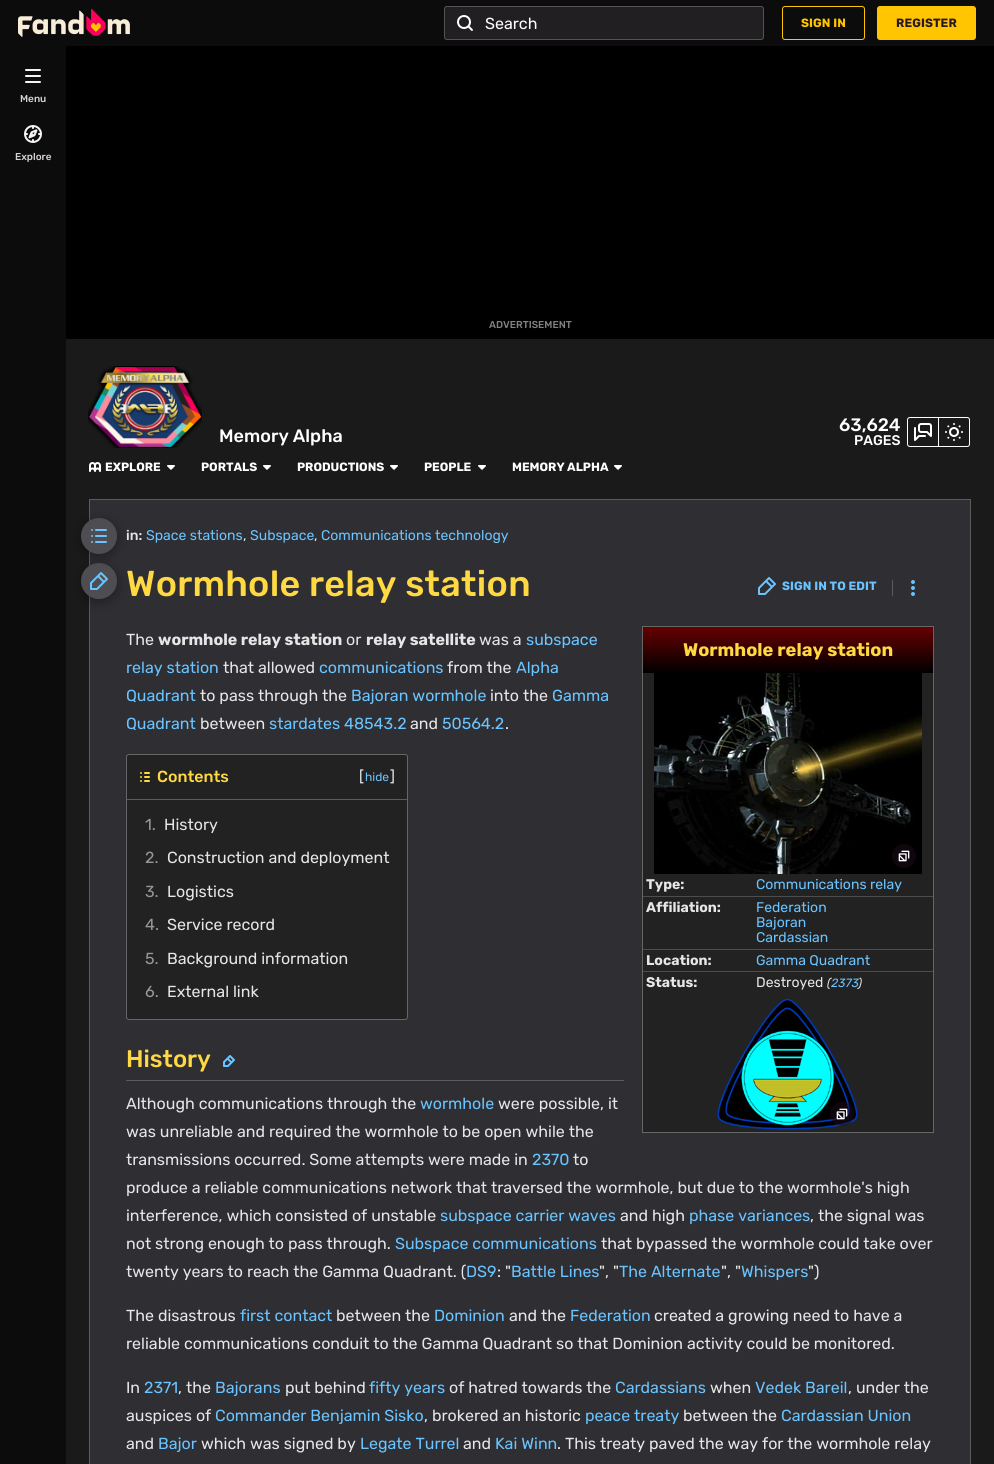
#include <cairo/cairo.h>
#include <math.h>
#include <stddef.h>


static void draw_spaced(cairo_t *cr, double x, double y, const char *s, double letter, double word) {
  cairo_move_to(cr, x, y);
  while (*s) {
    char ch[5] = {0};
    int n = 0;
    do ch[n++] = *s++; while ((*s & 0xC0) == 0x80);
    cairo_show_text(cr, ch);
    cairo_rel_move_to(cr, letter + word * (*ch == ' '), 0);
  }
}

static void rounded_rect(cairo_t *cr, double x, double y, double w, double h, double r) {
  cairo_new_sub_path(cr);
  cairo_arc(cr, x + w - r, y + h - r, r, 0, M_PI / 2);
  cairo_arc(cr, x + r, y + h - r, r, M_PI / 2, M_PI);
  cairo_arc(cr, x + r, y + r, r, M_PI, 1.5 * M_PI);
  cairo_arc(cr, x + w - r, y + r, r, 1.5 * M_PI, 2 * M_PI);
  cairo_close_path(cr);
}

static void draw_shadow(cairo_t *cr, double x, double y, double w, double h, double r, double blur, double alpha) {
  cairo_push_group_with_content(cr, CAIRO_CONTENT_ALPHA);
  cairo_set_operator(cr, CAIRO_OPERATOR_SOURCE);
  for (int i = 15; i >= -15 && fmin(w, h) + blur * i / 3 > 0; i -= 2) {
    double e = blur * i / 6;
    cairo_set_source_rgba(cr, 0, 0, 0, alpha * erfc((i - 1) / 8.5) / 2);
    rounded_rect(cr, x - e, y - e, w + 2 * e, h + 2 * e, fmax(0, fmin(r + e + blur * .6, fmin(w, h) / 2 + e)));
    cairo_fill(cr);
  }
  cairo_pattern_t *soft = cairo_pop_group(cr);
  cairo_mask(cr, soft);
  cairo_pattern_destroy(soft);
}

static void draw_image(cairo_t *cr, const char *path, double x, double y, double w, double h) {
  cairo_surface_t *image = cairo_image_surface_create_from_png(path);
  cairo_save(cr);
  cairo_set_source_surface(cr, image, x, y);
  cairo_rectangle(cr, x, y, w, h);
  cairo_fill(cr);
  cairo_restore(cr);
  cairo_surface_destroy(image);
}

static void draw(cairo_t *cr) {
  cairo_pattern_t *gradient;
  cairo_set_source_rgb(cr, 26 / 255.0, 26 / 255.0, 26 / 255.0);
  cairo_paint(cr);
  cairo_set_source_rgb(cr, 12 / 255.0, 12 / 255.0, 12 / 255.0);
  cairo_rectangle(cr, 0, 0, 994, 46);
  cairo_fill(cr);
  draw_image(cr, "images/1.png", 18, 9, 112, 28);
  cairo_set_source_rgb(cr, 33 / 255.0, 31 / 255.0, 33 / 255.0);
  rounded_rect(cr, 444, 6, 320, 34, 3);
  cairo_fill(cr);
  rounded_rect(cr, 444.5, 6.5, 319, 33, 2.5);
  cairo_set_source_rgba(cr, 245 / 255.0, 243 / 255.0, 245 / 255.0, 0.25);
  cairo_set_line_width(cr, 1);
  cairo_stroke(cr);
  draw_image(cr, "images/2.png", 457, 15, 16, 16);
  rounded_rect(cr, 782.5, 6.5, 82, 33, 2.5);
  cairo_set_source_rgb(cr, 1, 197 / 255.0, 0);
  cairo_stroke(cr);
  rounded_rect(cr, 877.5, 6.5, 98, 33, 2.5);
  cairo_fill_preserve(cr);
  cairo_stroke(cr);
  cairo_rectangle(cr, 89.5, 499.5, 881, 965);
  cairo_set_source_rgb(cr, 92 / 255.0, 92 / 255.0, 96 / 255.0);
  cairo_stroke(cr);
  cairo_set_source_rgb(cr, 46 / 255.0, 46 / 255.0, 51 / 255.0);
  cairo_rectangle(cr, 90, 500, 880, 964);
  cairo_fill(cr);
  cairo_set_source_rgb(cr, 0, 0, 0);
  draw_shadow(cr, 81, 566, 36, 36, 18, 6, 0.3);
  cairo_set_source_rgb(cr, 77 / 255.0, 77 / 255.0, 82 / 255.0);
  cairo_arc(cr, 99, 581, 18, 0, 2 * M_PI);
  cairo_fill(cr);
  draw_image(cr, "images/11.png", 90, 572, 18, 18);
  cairo_set_source_rgb(cr, 0, 0, 0);
  draw_shadow(cr, 81, 521, 36, 36, 18, 6, 0.3);
  cairo_set_source_rgb(cr, 12 / 255.0, 12 / 255.0, 12 / 255.0);
  cairo_rectangle(cr, 0, 46, 66, 1418);
  cairo_fill(cr);
  draw_image(cr, "images/3.png", 25, 69, 16, 14);
  draw_image(cr, "images/4.png", 24, 125, 18, 18);
  cairo_set_source_rgb(cr, 0, 0, 0);
  cairo_rectangle(cr, 66, 46, 928, 293);
  cairo_fill(cr);
  draw_image(cr, "images/5.png", 88, 366, 114, 82);
  cairo_new_path(cr);
  cairo_move_to(cr, 910, 417.5);
  cairo_line_to(cr, 938.5, 417.5);
  cairo_line_to(cr, 938.5, 446.5);
  cairo_line_to(cr, 910, 446.5);
  cairo_curve_to(cr, 908.5, 446.5, 907.5, 445.5, 907.5, 444);
  cairo_line_to(cr, 907.5, 420);
  cairo_curve_to(cr, 907.5, 418.5, 908.5, 417.5, 910, 417.5);
  cairo_close_path(cr);
  cairo_set_source_rgb(cr, 1, 1, 1);
  cairo_stroke(cr);
  draw_image(cr, "images/6.png", 914, 423, 18, 18);
  cairo_new_path(cr);
  cairo_move_to(cr, 938.5, 417.5);
  cairo_line_to(cr, 967, 417.5);
  cairo_curve_to(cr, 968.5, 417.5, 969.5, 418.5, 969.5, 420);
  cairo_line_to(cr, 969.5, 444);
  cairo_curve_to(cr, 969.5, 445.5, 968.5, 446.5, 967, 446.5);
  cairo_line_to(cr, 938.5, 446.5);
  cairo_close_path(cr);
  cairo_stroke(cr);
  draw_image(cr, "images/7.png", 945, 423, 18, 18);
  draw_image(cr, "images/8.png", 89, 462, 12, 10);
  draw_image(cr, "images/9.png", 167, 465, 8, 5);
  draw_image(cr, "images/9.png", 263, 465, 8, 5);
  draw_image(cr, "images/9.png", 390, 465, 8, 5);
  draw_image(cr, "images/9.png", 478, 465, 8, 5);
  draw_image(cr, "images/9.png", 614, 465, 8, 5);
  cairo_set_source_rgb(cr, 77 / 255.0, 77 / 255.0, 82 / 255.0);
  cairo_arc(cr, 99, 536, 18, 0, 2 * M_PI);
  cairo_fill(cr);
  draw_image(cr, "images/10.png", 91, 529, 16, 14);
  draw_image(cr, "images/12.png", 758, 577, 18, 18);
  cairo_set_source_rgb(cr, 92 / 255.0, 92 / 255.0, 96 / 255.0);
  cairo_rectangle(cr, 892, 580, 1, 16);
  cairo_fill(cr);
  draw_image(cr, "images/13.png", 911, 580, 4, 16);
  cairo_set_source_rgb(cr, 34 / 255.0, 34 / 255.0, 34 / 255.0);
  cairo_rectangle(cr, 643, 673, 290, 459);
  cairo_fill(cr);
  cairo_rectangle(cr, 642.5, 626.5, 291, 506);
  cairo_set_source_rgb(cr, 102 / 255.0, 102 / 255.0, 102 / 255.0);
  cairo_stroke(cr);
  gradient = cairo_pattern_create_linear(788, 627, 788, 673);
  cairo_pattern_add_color_stop_rgba(gradient, 0, 102 / 255.0, 0, 0, 1);
  cairo_pattern_add_color_stop_rgba(gradient, 1, 0, 0, 0, 1);
  cairo_set_source(cr, gradient);
  cairo_pattern_destroy(gradient);
  cairo_rectangle(cr, 643, 627, 290, 46);
  cairo_fill(cr);
  draw_image(cr, "images/14.png", 654, 673, 268, 201);
  cairo_set_source_rgb(cr, 15 / 255.0, 6 / 255.0, 14 / 255.0);
  cairo_arc(cr, 904, 856, 12, 0, 2 * M_PI);
  cairo_fill(cr);
  draw_image(cr, "images/15.png", 898, 850, 12, 12);
  cairo_set_source_rgb(cr, 77 / 255.0, 77 / 255.0, 77 / 255.0);
  cairo_rectangle(cr, 643, 896, 290, 1);
  cairo_fill(cr);
  cairo_rectangle(cr, 643, 949, 290, 1);
  cairo_fill(cr);
  cairo_rectangle(cr, 643, 971, 290, 1);
  cairo_fill(cr);
  draw_image(cr, "images/16.png", 717, 998, 141, 132);
  cairo_set_source_rgba(cr, 30 / 255.0, 12 / 255.0, 27 / 255.0, 0.5);
  cairo_arc(cr, 842, 1114, 12, 0, 2 * M_PI);
  cairo_fill(cr);
  draw_image(cr, "images/17.png", 836, 1108, 12, 12);
  cairo_set_source_rgb(cr, 34 / 255.0, 34 / 255.0, 34 / 255.0);
  rounded_rect(cr, 126.5, 754.5, 281, 265, 2.5);
  cairo_fill_preserve(cr);
  cairo_set_source_rgb(cr, 102 / 255.0, 102 / 255.0, 102 / 255.0);
  cairo_stroke(cr);
  cairo_set_source_rgb(cr, 92 / 255.0, 92 / 255.0, 96 / 255.0);
  cairo_rectangle(cr, 127, 799, 280, 1);
  cairo_fill(cr);
  draw_image(cr, "images/18.png", 140, 772, 10, 10);
  cairo_rectangle(cr, 126, 1080, 498, 1);
  cairo_fill(cr);
  draw_image(cr, "images/19.png", 223, 1055, 12, 12);
  cairo_select_font_face(cr, "Rubik", CAIRO_FONT_SLANT_NORMAL, CAIRO_FONT_WEIGHT_NORMAL);
  cairo_set_font_size(cr, 16);
  cairo_set_source_rgb(cr, 1, 1, 1);
  cairo_move_to(cr, 485, 29);
  cairo_show_text(cr, "Search");
  cairo_select_font_face(cr, "Rubik", CAIRO_FONT_SLANT_NORMAL, CAIRO_FONT_WEIGHT_BOLD);
  cairo_set_font_size(cr, 12);
  cairo_set_source_rgb(cr, 1, 197 / 255.0, 0);
  draw_spaced(cr, 801, 27, "SIGN IN", 0.1, 0);
  cairo_set_source_rgb(cr, 41 / 255.0, 25 / 255.0, 39 / 255.0);
  draw_spaced(cr, 896, 27, "REGISTER", 0.1, 0);
  cairo_select_font_face(cr, "Rubik Medium", CAIRO_FONT_SLANT_NORMAL, CAIRO_FONT_WEIGHT_NORMAL);
  cairo_set_font_size(cr, 10);
  cairo_set_source_rgb(cr, 214 / 255.0, 208 / 255.0, 213 / 255.0);
  cairo_move_to(cr, 20, 102);
  cairo_show_text(cr, "Menu");
  cairo_move_to(cr, 15, 160);
  cairo_show_text(cr, "Explore");
  cairo_set_source_rgb(cr, 131 / 255.0, 130 / 255.0, 131 / 255.0);
  cairo_move_to(cr, 489, 328);
  cairo_show_text(cr, "ADVERTISEMENT");
  cairo_set_font_size(cr, 18);
  cairo_set_source_rgb(cr, 1, 1, 1);
  cairo_move_to(cr, 219, 442);
  cairo_show_text(cr, "Memory Alpha");
  cairo_move_to(cr, 839, 431);
  cairo_show_text(cr, "63,624");
  cairo_set_font_size(cr, 14);
  cairo_move_to(cr, 854, 445);
  cairo_show_text(cr, "PAGES");
  cairo_select_font_face(cr, "Rubik", CAIRO_FONT_SLANT_NORMAL, CAIRO_FONT_WEIGHT_BOLD);
  cairo_set_font_size(cr, 12);
  cairo_move_to(cr, 105, 471);
  cairo_show_text(cr, "EXPLORE");
  cairo_move_to(cr, 201, 471);
  cairo_show_text(cr, "PORTALS");
  cairo_move_to(cr, 297, 471);
  cairo_show_text(cr, "PRODUCTIONS");
  cairo_move_to(cr, 424, 471);
  cairo_show_text(cr, "PEOPLE");
  cairo_move_to(cr, 512, 471);
  cairo_show_text(cr, "MEMORY ALPHA");
  cairo_select_font_face(cr, "Rubik Medium", CAIRO_FONT_SLANT_NORMAL, CAIRO_FONT_WEIGHT_NORMAL);
  cairo_set_font_size(cr, 14);
  cairo_set_source_rgb(cr, 230 / 255.0, 230 / 255.0, 230 / 255.0);
  cairo_move_to(cr, 126, 540);
  cairo_show_text(cr, "in:");
  cairo_select_font_face(cr, "Rubik", CAIRO_FONT_SLANT_NORMAL, CAIRO_FONT_WEIGHT_NORMAL);
  cairo_set_source_rgb(cr, 106 / 255.0, 196 / 255.0, 1);
  cairo_move_to(cr, 146, 540);
  cairo_show_text(cr, "Space stations");
  cairo_set_source_rgb(cr, 230 / 255.0, 230 / 255.0, 230 / 255.0);
  cairo_move_to(cr, 243, 540);
  cairo_show_text(cr, ",");
  cairo_set_source_rgb(cr, 106 / 255.0, 196 / 255.0, 1);
  cairo_move_to(cr, 250, 540);
  cairo_show_text(cr, "Subspace");
  cairo_set_source_rgb(cr, 230 / 255.0, 230 / 255.0, 230 / 255.0);
  cairo_move_to(cr, 314, 540);
  cairo_show_text(cr, ",");
  cairo_set_source_rgb(cr, 106 / 255.0, 196 / 255.0, 1);
  cairo_move_to(cr, 321, 540);
  cairo_show_text(cr, "Communications technology");
  cairo_select_font_face(cr, "Rubik Medium", CAIRO_FONT_SLANT_NORMAL, CAIRO_FONT_WEIGHT_NORMAL);
  cairo_set_font_size(cr, 36);
  cairo_set_source_rgb(cr, 1, 217 / 255.0, 66 / 255.0);
  draw_spaced(cr, 126, 596, "Wormhole relay station", 0.25, 0);
  cairo_select_font_face(cr, "Rubik", CAIRO_FONT_SLANT_NORMAL, CAIRO_FONT_WEIGHT_BOLD);
  cairo_set_font_size(cr, 12);
  cairo_set_source_rgb(cr, 106 / 255.0, 196 / 255.0, 1);
  draw_spaced(cr, 782, 590, "SIGN IN TO EDIT", 0.1, 0);
  cairo_select_font_face(cr, "Rubik", CAIRO_FONT_SLANT_NORMAL, CAIRO_FONT_WEIGHT_NORMAL);
  cairo_set_font_size(cr, 16);
  cairo_set_source_rgb(cr, 230 / 255.0, 230 / 255.0, 230 / 255.0);
  cairo_move_to(cr, 126, 645);
  cairo_show_text(cr, "The");
  cairo_select_font_face(cr, "Rubik", CAIRO_FONT_SLANT_NORMAL, CAIRO_FONT_WEIGHT_BOLD);
  cairo_move_to(cr, 158, 645);
  cairo_show_text(cr, "wormhole relay station");
  cairo_select_font_face(cr, "Rubik", CAIRO_FONT_SLANT_NORMAL, CAIRO_FONT_WEIGHT_NORMAL);
  cairo_move_to(cr, 346, 645);
  cairo_show_text(cr, "or");
  cairo_select_font_face(cr, "Rubik", CAIRO_FONT_SLANT_NORMAL, CAIRO_FONT_WEIGHT_BOLD);
  cairo_move_to(cr, 366, 645);
  cairo_show_text(cr, "relay satellite");
  cairo_select_font_face(cr, "Rubik", CAIRO_FONT_SLANT_NORMAL, CAIRO_FONT_WEIGHT_NORMAL);
  cairo_move_to(cr, 479, 645);
  cairo_show_text(cr, "was a");
  cairo_set_source_rgb(cr, 106 / 255.0, 196 / 255.0, 1);
  cairo_move_to(cr, 526, 645);
  cairo_show_text(cr, "subspace");
  cairo_move_to(cr, 126, 673);
  cairo_show_text(cr, "relay station");
  cairo_set_source_rgb(cr, 230 / 255.0, 230 / 255.0, 230 / 255.0);
  cairo_move_to(cr, 223, 673);
  cairo_show_text(cr, "that allowed");
  cairo_set_source_rgb(cr, 106 / 255.0, 196 / 255.0, 1);
  cairo_move_to(cr, 319, 673);
  cairo_show_text(cr, "communications");
  cairo_set_source_rgb(cr, 230 / 255.0, 230 / 255.0, 230 / 255.0);
  cairo_move_to(cr, 447, 673);
  cairo_show_text(cr, "from the");
  cairo_set_source_rgb(cr, 106 / 255.0, 196 / 255.0, 1);
  cairo_move_to(cr, 516, 673);
  cairo_show_text(cr, "Alpha");
  cairo_move_to(cr, 126, 701);
  cairo_show_text(cr, "Quadrant");
  cairo_set_source_rgb(cr, 230 / 255.0, 230 / 255.0, 230 / 255.0);
  cairo_move_to(cr, 200, 701);
  cairo_show_text(cr, "to pass through the");
  cairo_set_source_rgb(cr, 106 / 255.0, 196 / 255.0, 1);
  cairo_move_to(cr, 351, 701);
  cairo_show_text(cr, "Bajoran wormhole");
  cairo_set_source_rgb(cr, 230 / 255.0, 230 / 255.0, 230 / 255.0);
  cairo_move_to(cr, 490, 701);
  cairo_show_text(cr, "into the");
  cairo_set_source_rgb(cr, 106 / 255.0, 196 / 255.0, 1);
  cairo_move_to(cr, 552, 701);
  cairo_show_text(cr, "Gamma");
  cairo_move_to(cr, 126, 729);
  cairo_show_text(cr, "Quadrant");
  cairo_set_source_rgb(cr, 230 / 255.0, 230 / 255.0, 230 / 255.0);
  cairo_move_to(cr, 200, 729);
  cairo_show_text(cr, "between");
  cairo_set_source_rgb(cr, 106 / 255.0, 196 / 255.0, 1);
  cairo_move_to(cr, 269, 729);
  cairo_show_text(cr, "stardates 48543.2");
  cairo_set_source_rgb(cr, 230 / 255.0, 230 / 255.0, 230 / 255.0);
  cairo_move_to(cr, 410, 729);
  cairo_show_text(cr, "and");
  cairo_set_source_rgb(cr, 106 / 255.0, 196 / 255.0, 1);
  cairo_move_to(cr, 442, 729);
  cairo_show_text(cr, "50564.2");
  cairo_set_source_rgb(cr, 230 / 255.0, 230 / 255.0, 230 / 255.0);
  cairo_move_to(cr, 505, 729);
  cairo_show_text(cr, ".");
  cairo_select_font_face(cr, "Rubik", CAIRO_FONT_SLANT_NORMAL, CAIRO_FONT_WEIGHT_BOLD);
  cairo_set_font_size(cr, 18.25);
  cairo_set_source_rgb(cr, 1, 217 / 255.0, 66 / 255.0);
  cairo_move_to(cr, 683, 656);
  cairo_show_text(cr, "Wormhole relay station");
  cairo_set_font_size(cr, 14);
  cairo_set_source_rgb(cr, 230 / 255.0, 230 / 255.0, 230 / 255.0);
  cairo_move_to(cr, 646, 889);
  cairo_show_text(cr, "Type:");
  cairo_select_font_face(cr, "Rubik", CAIRO_FONT_SLANT_NORMAL, CAIRO_FONT_WEIGHT_NORMAL);
  cairo_set_source_rgb(cr, 106 / 255.0, 196 / 255.0, 1);
  cairo_move_to(cr, 756, 889);
  cairo_show_text(cr, "Communications relay");
  cairo_select_font_face(cr, "Rubik", CAIRO_FONT_SLANT_NORMAL, CAIRO_FONT_WEIGHT_BOLD);
  cairo_set_source_rgb(cr, 230 / 255.0, 230 / 255.0, 230 / 255.0);
  cairo_move_to(cr, 646, 912);
  cairo_show_text(cr, "Affiliation:");
  cairo_select_font_face(cr, "Rubik", CAIRO_FONT_SLANT_NORMAL, CAIRO_FONT_WEIGHT_NORMAL);
  cairo_set_source_rgb(cr, 106 / 255.0, 196 / 255.0, 1);
  cairo_move_to(cr, 756, 912);
  cairo_show_text(cr, "Federation");
  cairo_move_to(cr, 756, 927);
  cairo_show_text(cr, "Bajoran");
  cairo_move_to(cr, 756, 942);
  cairo_show_text(cr, "Cardassian");
  cairo_select_font_face(cr, "Rubik", CAIRO_FONT_SLANT_NORMAL, CAIRO_FONT_WEIGHT_BOLD);
  cairo_set_source_rgb(cr, 230 / 255.0, 230 / 255.0, 230 / 255.0);
  cairo_move_to(cr, 646, 965);
  cairo_show_text(cr, "Location:");
  cairo_select_font_face(cr, "Rubik", CAIRO_FONT_SLANT_NORMAL, CAIRO_FONT_WEIGHT_NORMAL);
  cairo_set_source_rgb(cr, 106 / 255.0, 196 / 255.0, 1);
  cairo_move_to(cr, 756, 965);
  cairo_show_text(cr, "Gamma Quadrant");
  cairo_select_font_face(cr, "Rubik", CAIRO_FONT_SLANT_NORMAL, CAIRO_FONT_WEIGHT_BOLD);
  cairo_set_source_rgb(cr, 230 / 255.0, 230 / 255.0, 230 / 255.0);
  cairo_move_to(cr, 646, 987);
  cairo_show_text(cr, "Status:");
  cairo_select_font_face(cr, "Rubik", CAIRO_FONT_SLANT_NORMAL, CAIRO_FONT_WEIGHT_NORMAL);
  cairo_move_to(cr, 756, 987);
  cairo_show_text(cr, "Destroyed");
  cairo_select_font_face(cr, "Rubik", CAIRO_FONT_SLANT_ITALIC, CAIRO_FONT_WEIGHT_NORMAL);
  cairo_set_font_size(cr, 12);
  cairo_move_to(cr, 827, 987);
  cairo_show_text(cr, "(");
  cairo_set_source_rgb(cr, 106 / 255.0, 196 / 255.0, 1);
  cairo_move_to(cr, 831, 987);
  cairo_show_text(cr, "2373");
  cairo_set_source_rgb(cr, 230 / 255.0, 230 / 255.0, 230 / 255.0);
  cairo_move_to(cr, 858, 987);
  cairo_show_text(cr, ")");
  cairo_select_font_face(cr, "Rubik Medium", CAIRO_FONT_SLANT_NORMAL, CAIRO_FONT_WEIGHT_NORMAL);
  cairo_set_font_size(cr, 16);
  cairo_set_source_rgb(cr, 1, 217 / 255.0, 66 / 255.0);
  cairo_move_to(cr, 157, 782);
  cairo_show_text(cr, "Contents");
  cairo_select_font_face(cr, "Rubik", CAIRO_FONT_SLANT_NORMAL, CAIRO_FONT_WEIGHT_NORMAL);
  cairo_set_font_size(cr, 15);
  cairo_set_source_rgb(cr, 230 / 255.0, 230 / 255.0, 230 / 255.0);
  cairo_move_to(cr, 359, 781);
  cairo_show_text(cr, "[");
  cairo_set_font_size(cr, 12);
  cairo_set_source_rgb(cr, 106 / 255.0, 196 / 255.0, 1);
  cairo_move_to(cr, 365, 781);
  cairo_show_text(cr, "hide");
  cairo_set_font_size(cr, 15);
  cairo_set_source_rgb(cr, 230 / 255.0, 230 / 255.0, 230 / 255.0);
  cairo_move_to(cr, 390, 781);
  cairo_show_text(cr, "]");
  cairo_set_font_size(cr, 16);
  cairo_set_source_rgb(cr, 152 / 255.0, 152 / 255.0, 152 / 255.0);
  cairo_move_to(cr, 145, 830);
  cairo_show_text(cr, "1.");
  cairo_set_source_rgb(cr, 230 / 255.0, 230 / 255.0, 230 / 255.0);
  cairo_move_to(cr, 164, 830);
  cairo_show_text(cr, "History");
  cairo_set_source_rgb(cr, 152 / 255.0, 152 / 255.0, 152 / 255.0);
  cairo_move_to(cr, 145, 863);
  cairo_show_text(cr, "2.");
  cairo_set_source_rgb(cr, 230 / 255.0, 230 / 255.0, 230 / 255.0);
  cairo_move_to(cr, 167, 863);
  cairo_show_text(cr, "Construction and deployment");
  cairo_set_source_rgb(cr, 152 / 255.0, 152 / 255.0, 152 / 255.0);
  cairo_move_to(cr, 145, 897);
  cairo_show_text(cr, "3.");
  cairo_set_source_rgb(cr, 230 / 255.0, 230 / 255.0, 230 / 255.0);
  cairo_move_to(cr, 167, 897);
  cairo_show_text(cr, "Logistics");
  cairo_set_source_rgb(cr, 152 / 255.0, 152 / 255.0, 152 / 255.0);
  cairo_move_to(cr, 145, 930);
  cairo_show_text(cr, "4.");
  cairo_set_source_rgb(cr, 230 / 255.0, 230 / 255.0, 230 / 255.0);
  cairo_move_to(cr, 167, 930);
  cairo_show_text(cr, "Service record");
  cairo_set_source_rgb(cr, 152 / 255.0, 152 / 255.0, 152 / 255.0);
  cairo_move_to(cr, 145, 964);
  cairo_show_text(cr, "5.");
  cairo_set_source_rgb(cr, 230 / 255.0, 230 / 255.0, 230 / 255.0);
  cairo_move_to(cr, 167, 964);
  cairo_show_text(cr, "Background information");
  cairo_set_source_rgb(cr, 152 / 255.0, 152 / 255.0, 152 / 255.0);
  cairo_move_to(cr, 145, 997);
  cairo_show_text(cr, "6.");
  cairo_set_source_rgb(cr, 230 / 255.0, 230 / 255.0, 230 / 255.0);
  cairo_move_to(cr, 167, 997);
  cairo_show_text(cr, "External link");
  cairo_select_font_face(cr, "Rubik Medium", CAIRO_FONT_SLANT_NORMAL, CAIRO_FONT_WEIGHT_NORMAL);
  cairo_set_font_size(cr, 24);
  cairo_set_source_rgb(cr, 1, 217 / 255.0, 66 / 255.0);
  cairo_move_to(cr, 126, 1067);
  cairo_show_text(cr, "History");
  cairo_select_font_face(cr, "Rubik", CAIRO_FONT_SLANT_NORMAL, CAIRO_FONT_WEIGHT_NORMAL);
  cairo_set_font_size(cr, 16);
  cairo_set_source_rgb(cr, 230 / 255.0, 230 / 255.0, 230 / 255.0);
  cairo_move_to(cr, 126, 1109);
  cairo_show_text(cr, "Although communications through the");
  cairo_set_source_rgb(cr, 106 / 255.0, 196 / 255.0, 1);
  cairo_move_to(cr, 420, 1109);
  cairo_show_text(cr, "wormhole");
  cairo_set_source_rgb(cr, 230 / 255.0, 230 / 255.0, 230 / 255.0);
  cairo_move_to(cr, 498, 1109);
  cairo_show_text(cr, "were possible, it");
  cairo_move_to(cr, 126, 1137);
  cairo_show_text(cr, "was unreliable and required the wormhole to be open while the");
  cairo_move_to(cr, 126, 1165);
  cairo_show_text(cr, "transmissions occurred. Some attempts were made in");
  cairo_set_source_rgb(cr, 106 / 255.0, 196 / 255.0, 1);
  cairo_move_to(cr, 532, 1165);
  cairo_show_text(cr, "2370");
  cairo_set_source_rgb(cr, 230 / 255.0, 230 / 255.0, 230 / 255.0);
  cairo_move_to(cr, 573, 1165);
  cairo_show_text(cr, "to");
  cairo_move_to(cr, 126, 1193);
  cairo_show_text(cr, "produce a reliable communications network that traversed the wormhole, but due to the wormhole's high");
  cairo_move_to(cr, 126, 1221);
  cairo_show_text(cr, "interference, which consisted of unstable");
  cairo_set_source_rgb(cr, 106 / 255.0, 196 / 255.0, 1);
  cairo_move_to(cr, 440, 1221);
  cairo_show_text(cr, "subspace carrier waves");
  cairo_set_source_rgb(cr, 230 / 255.0, 230 / 255.0, 230 / 255.0);
  cairo_move_to(cr, 620, 1221);
  cairo_show_text(cr, "and high");
  cairo_set_source_rgb(cr, 106 / 255.0, 196 / 255.0, 1);
  cairo_move_to(cr, 689, 1221);
  cairo_show_text(cr, "phase variances");
  cairo_set_source_rgb(cr, 230 / 255.0, 230 / 255.0, 230 / 255.0);
  cairo_move_to(cr, 810, 1221);
  cairo_show_text(cr, ", the signal was");
  cairo_move_to(cr, 126, 1249);
  cairo_show_text(cr, "not strong enough to pass through.");
  cairo_set_source_rgb(cr, 106 / 255.0, 196 / 255.0, 1);
  cairo_move_to(cr, 395, 1249);
  cairo_show_text(cr, "Subspace communications");
  cairo_set_source_rgb(cr, 230 / 255.0, 230 / 255.0, 230 / 255.0);
  cairo_move_to(cr, 601, 1249);
  cairo_show_text(cr, "that bypassed the wormhole could take over");
  cairo_move_to(cr, 126, 1277);
  cairo_show_text(cr, "twenty years to reach the Gamma Quadrant. (");
  cairo_set_source_rgb(cr, 106 / 255.0, 196 / 255.0, 1);
  cairo_move_to(cr, 466, 1277);
  cairo_show_text(cr, "DS9");
  cairo_set_source_rgb(cr, 230 / 255.0, 230 / 255.0, 230 / 255.0);
  cairo_move_to(cr, 497, 1277);
  cairo_show_text(cr, ": \"");
  cairo_set_source_rgb(cr, 106 / 255.0, 196 / 255.0, 1);
  cairo_move_to(cr, 511, 1277);
  cairo_show_text(cr, "Battle Lines");
  cairo_set_source_rgb(cr, 230 / 255.0, 230 / 255.0, 230 / 255.0);
  cairo_move_to(cr, 599, 1277);
  cairo_show_text(cr, "\", \"");
  cairo_set_source_rgb(cr, 106 / 255.0, 196 / 255.0, 1);
  cairo_move_to(cr, 619, 1277);
  cairo_show_text(cr, "The Alternate");
  cairo_set_source_rgb(cr, 230 / 255.0, 230 / 255.0, 230 / 255.0);
  cairo_move_to(cr, 721, 1277);
  cairo_show_text(cr, "\", \"");
  cairo_set_source_rgb(cr, 106 / 255.0, 196 / 255.0, 1);
  cairo_move_to(cr, 741, 1277);
  cairo_show_text(cr, "Whispers");
  cairo_set_source_rgb(cr, 230 / 255.0, 230 / 255.0, 230 / 255.0);
  cairo_move_to(cr, 808, 1277);
  cairo_show_text(cr, "\")");
  cairo_move_to(cr, 126, 1321);
  cairo_show_text(cr, "The disastrous");
  cairo_set_source_rgb(cr, 106 / 255.0, 196 / 255.0, 1);
  cairo_move_to(cr, 240, 1321);
  cairo_show_text(cr, "first contact");
  cairo_set_source_rgb(cr, 230 / 255.0, 230 / 255.0, 230 / 255.0);
  cairo_move_to(cr, 336, 1321);
  cairo_show_text(cr, "between the");
  cairo_set_source_rgb(cr, 106 / 255.0, 196 / 255.0, 1);
  cairo_move_to(cr, 434, 1321);
  cairo_show_text(cr, "Dominion");
  cairo_set_source_rgb(cr, 230 / 255.0, 230 / 255.0, 230 / 255.0);
  cairo_move_to(cr, 509, 1321);
  cairo_show_text(cr, "and the");
  cairo_set_source_rgb(cr, 106 / 255.0, 196 / 255.0, 1);
  cairo_move_to(cr, 570, 1321);
  cairo_show_text(cr, "Federation");
  cairo_set_source_rgb(cr, 230 / 255.0, 230 / 255.0, 230 / 255.0);
  cairo_move_to(cr, 654, 1321);
  cairo_show_text(cr, "created a growing need to have a");
  cairo_move_to(cr, 126, 1349);
  cairo_show_text(cr, "reliable communications conduit to the Gamma Quadrant so that Dominion activity could be monitored.");
  cairo_move_to(cr, 126, 1393);
  cairo_show_text(cr, "In");
  cairo_set_source_rgb(cr, 106 / 255.0, 196 / 255.0, 1);
  cairo_move_to(cr, 144, 1393);
  cairo_show_text(cr, "2371");
  cairo_set_source_rgb(cr, 230 / 255.0, 230 / 255.0, 230 / 255.0);
  cairo_move_to(cr, 178, 1393);
  cairo_show_text(cr, ", the");
  cairo_set_source_rgb(cr, 106 / 255.0, 196 / 255.0, 1);
  cairo_move_to(cr, 215, 1393);
  cairo_show_text(cr, "Bajorans");
  cairo_set_source_rgb(cr, 230 / 255.0, 230 / 255.0, 230 / 255.0);
  cairo_move_to(cr, 285, 1393);
  cairo_show_text(cr, "put behind");
  cairo_set_source_rgb(cr, 106 / 255.0, 196 / 255.0, 1);
  cairo_move_to(cr, 369, 1393);
  cairo_show_text(cr, "fifty years");
  cairo_set_source_rgb(cr, 230 / 255.0, 230 / 255.0, 230 / 255.0);
  cairo_move_to(cr, 449, 1393);
  cairo_show_text(cr, "of hatred towards the");
  cairo_set_source_rgb(cr, 106 / 255.0, 196 / 255.0, 1);
  cairo_move_to(cr, 615, 1393);
  cairo_show_text(cr, "Cardassians");
  cairo_set_source_rgb(cr, 230 / 255.0, 230 / 255.0, 230 / 255.0);
  cairo_move_to(cr, 710, 1393);
  cairo_show_text(cr, "when");
  cairo_set_source_rgb(cr, 106 / 255.0, 196 / 255.0, 1);
  cairo_move_to(cr, 755, 1393);
  cairo_show_text(cr, "Vedek Bareil");
  cairo_set_source_rgb(cr, 230 / 255.0, 230 / 255.0, 230 / 255.0);
  cairo_move_to(cr, 848, 1393);
  cairo_show_text(cr, ", under the");
  cairo_move_to(cr, 126, 1421);
  cairo_show_text(cr, "auspices of");
  cairo_set_source_rgb(cr, 106 / 255.0, 196 / 255.0, 1);
  cairo_move_to(cr, 215, 1421);
  cairo_show_text(cr, "Commander Benjamin Sisko");
  cairo_set_source_rgb(cr, 230 / 255.0, 230 / 255.0, 230 / 255.0);
  cairo_move_to(cr, 424, 1421);
  cairo_show_text(cr, ", brokered an historic");
  cairo_set_source_rgb(cr, 106 / 255.0, 196 / 255.0, 1);
  cairo_move_to(cr, 585, 1421);
  cairo_show_text(cr, "peace treaty");
  cairo_set_source_rgb(cr, 230 / 255.0, 230 / 255.0, 230 / 255.0);
  cairo_move_to(cr, 683, 1421);
  cairo_show_text(cr, "between the");
  cairo_set_source_rgb(cr, 106 / 255.0, 196 / 255.0, 1);
  cairo_move_to(cr, 781, 1421);
  cairo_show_text(cr, "Cardassian Union");
  cairo_set_source_rgb(cr, 230 / 255.0, 230 / 255.0, 230 / 255.0);
  cairo_move_to(cr, 126, 1449);
  cairo_show_text(cr, "and");
  cairo_set_source_rgb(cr, 106 / 255.0, 196 / 255.0, 1);
  cairo_move_to(cr, 158, 1449);
  cairo_show_text(cr, "Bajor");
  cairo_set_source_rgb(cr, 230 / 255.0, 230 / 255.0, 230 / 255.0);
  cairo_move_to(cr, 201, 1449);
  cairo_show_text(cr, "which was signed by");
  cairo_set_source_rgb(cr, 106 / 255.0, 196 / 255.0, 1);
  cairo_move_to(cr, 360, 1449);
  cairo_show_text(cr, "Legate Turrel");
  cairo_set_source_rgb(cr, 230 / 255.0, 230 / 255.0, 230 / 255.0);
  cairo_move_to(cr, 463, 1449);
  cairo_show_text(cr, "and");
  cairo_set_source_rgb(cr, 106 / 255.0, 196 / 255.0, 1);
  cairo_move_to(cr, 495, 1449);
  cairo_show_text(cr, "Kai Winn");
  cairo_set_source_rgb(cr, 230 / 255.0, 230 / 255.0, 230 / 255.0);
  cairo_move_to(cr, 557, 1449);
  cairo_show_text(cr, ". This treaty paved the way for the wormhole relay");
}

int main(void) {
  cairo_surface_t *surface = cairo_image_surface_create(CAIRO_FORMAT_RGB24, 994, 1464);
  cairo_t *cr = cairo_create(surface);
  cairo_font_options_t *options = cairo_font_options_create();
  cairo_font_options_set_hint_metrics(options, CAIRO_HINT_METRICS_OFF);
  cairo_font_options_set_hint_style(options, CAIRO_HINT_STYLE_NONE);
  cairo_set_font_options(cr, options);
  cairo_set_miter_limit(cr, 4);
  draw(cr);
  cairo_surface_write_to_png(surface, "out.png");
  cairo_font_options_destroy(options);
  cairo_destroy(cr);
  cairo_surface_destroy(surface);
  return 0;
}
